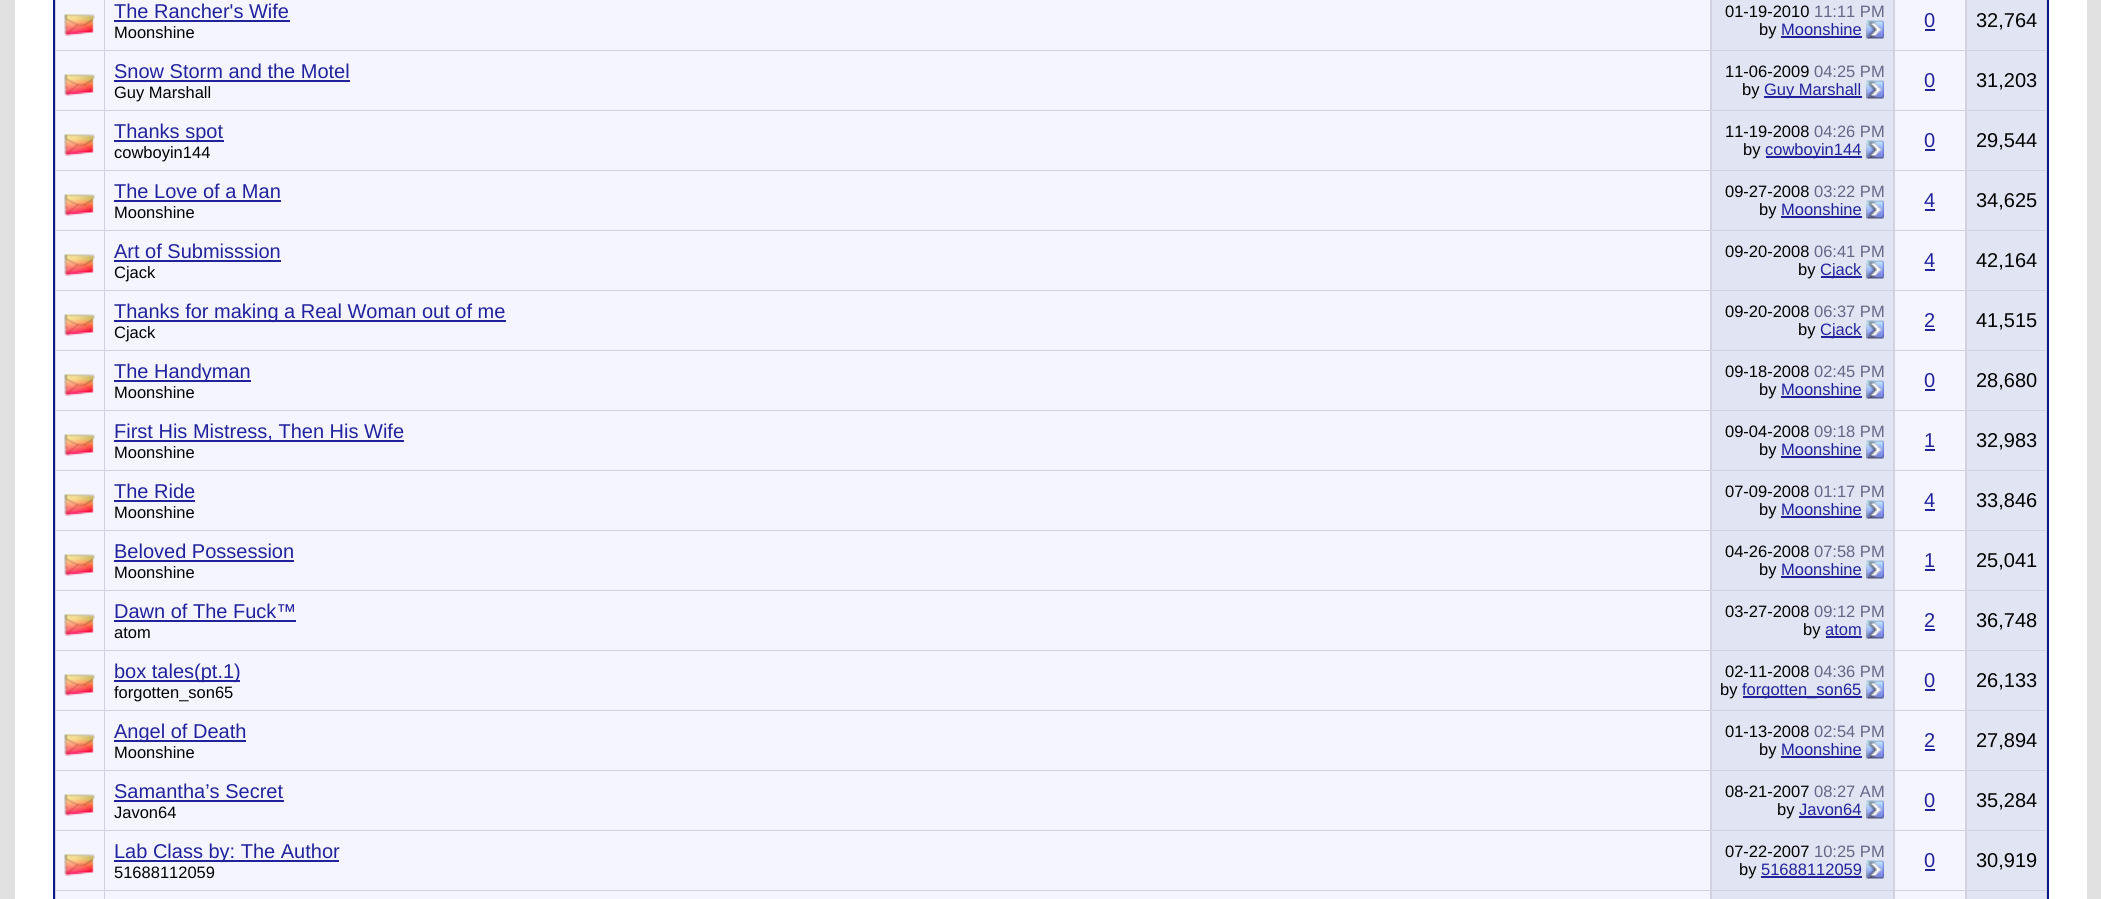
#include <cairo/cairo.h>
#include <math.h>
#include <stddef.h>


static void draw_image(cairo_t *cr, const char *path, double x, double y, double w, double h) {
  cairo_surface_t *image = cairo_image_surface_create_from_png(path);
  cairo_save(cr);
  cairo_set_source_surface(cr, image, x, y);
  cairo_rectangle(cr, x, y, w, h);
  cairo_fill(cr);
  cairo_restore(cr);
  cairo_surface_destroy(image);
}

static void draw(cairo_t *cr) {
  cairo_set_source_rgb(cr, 225 / 255.0, 225 / 255.0, 226 / 255.0);
  cairo_paint(cr);
  cairo_set_source_rgb(cr, 1, 1, 1);
  cairo_rectangle(cr, 15, 0, 2072, 899);
  cairo_fill(cr);
  cairo_set_source_rgb(cr, 209 / 255.0, 209 / 255.0, 225 / 255.0);
  cairo_rectangle(cr, 54, -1, 1994, 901);
  cairo_fill_preserve(cr);
  cairo_set_source_rgb(cr, 11 / 255.0, 25 / 255.0, 140 / 255.0);
  cairo_stroke(cr);
  cairo_set_source_rgb(cr, 245 / 255.0, 245 / 255.0, 1);
  cairo_rectangle(cr, 56, 0, 48, 50);
  cairo_fill(cr);
  draw_image(cr, "images/1.png", 64, 14, 31, 22);
  cairo_rectangle(cr, 105, 0, 1605, 50);
  cairo_fill(cr);
  cairo_set_source_rgb(cr, 34 / 255.0, 34 / 255.0, 156 / 255.0);
  cairo_rectangle(cr, 114, 20, 176, 2);
  cairo_fill(cr);
  cairo_set_source_rgb(cr, 225 / 255.0, 228 / 255.0, 242 / 255.0);
  cairo_rectangle(cr, 1712, 0, 181, 50);
  cairo_fill(cr);
  cairo_set_source_rgb(cr, 34 / 255.0, 34 / 255.0, 156 / 255.0);
  cairo_rectangle(cr, 1781, 36, 81, 2);
  cairo_fill(cr);
  draw_image(cr, "images/2.png", 1866, 20, 18, 19);
  cairo_set_source_rgb(cr, 245 / 255.0, 245 / 255.0, 1);
  cairo_rectangle(cr, 1895, 0, 70, 50);
  cairo_fill(cr);
  cairo_set_source_rgb(cr, 34 / 255.0, 34 / 255.0, 156 / 255.0);
  cairo_rectangle(cr, 1925, 29, 10, 2);
  cairo_fill(cr);
  cairo_set_source_rgb(cr, 225 / 255.0, 228 / 255.0, 242 / 255.0);
  cairo_rectangle(cr, 1967, 0, 79, 50);
  cairo_fill(cr);
  cairo_set_source_rgb(cr, 245 / 255.0, 245 / 255.0, 1);
  cairo_rectangle(cr, 56, 51, 48, 59);
  cairo_fill(cr);
  draw_image(cr, "images/1.png", 64, 74, 31, 22);
  cairo_rectangle(cr, 105, 51, 1605, 59);
  cairo_fill(cr);
  cairo_set_source_rgb(cr, 34 / 255.0, 34 / 255.0, 156 / 255.0);
  cairo_rectangle(cr, 114, 80, 236, 2);
  cairo_fill(cr);
  cairo_set_source_rgb(cr, 225 / 255.0, 228 / 255.0, 242 / 255.0);
  cairo_rectangle(cr, 1712, 51, 181, 59);
  cairo_fill(cr);
  cairo_set_source_rgb(cr, 34 / 255.0, 34 / 255.0, 156 / 255.0);
  cairo_rectangle(cr, 1764, 96, 98, 2);
  cairo_fill(cr);
  draw_image(cr, "images/2.png", 1866, 80, 18, 19);
  cairo_set_source_rgb(cr, 245 / 255.0, 245 / 255.0, 1);
  cairo_rectangle(cr, 1895, 51, 70, 59);
  cairo_fill(cr);
  cairo_set_source_rgb(cr, 34 / 255.0, 34 / 255.0, 156 / 255.0);
  cairo_rectangle(cr, 1925, 89, 10, 2);
  cairo_fill(cr);
  cairo_set_source_rgb(cr, 225 / 255.0, 228 / 255.0, 242 / 255.0);
  cairo_rectangle(cr, 1967, 51, 79, 59);
  cairo_fill(cr);
  cairo_set_source_rgb(cr, 245 / 255.0, 245 / 255.0, 1);
  cairo_rectangle(cr, 56, 111, 48, 59);
  cairo_fill(cr);
  draw_image(cr, "images/1.png", 64, 134, 31, 22);
  cairo_rectangle(cr, 105, 111, 1605, 59);
  cairo_fill(cr);
  cairo_set_source_rgb(cr, 34 / 255.0, 34 / 255.0, 156 / 255.0);
  cairo_rectangle(cr, 114, 140, 110, 2);
  cairo_fill(cr);
  cairo_set_source_rgb(cr, 225 / 255.0, 228 / 255.0, 242 / 255.0);
  cairo_rectangle(cr, 1712, 111, 181, 59);
  cairo_fill(cr);
  cairo_set_source_rgb(cr, 34 / 255.0, 34 / 255.0, 156 / 255.0);
  cairo_rectangle(cr, 1766, 156, 96, 2);
  cairo_fill(cr);
  draw_image(cr, "images/2.png", 1866, 140, 18, 19);
  cairo_set_source_rgb(cr, 245 / 255.0, 245 / 255.0, 1);
  cairo_rectangle(cr, 1895, 111, 70, 59);
  cairo_fill(cr);
  cairo_set_source_rgb(cr, 34 / 255.0, 34 / 255.0, 156 / 255.0);
  cairo_rectangle(cr, 1925, 149, 10, 2);
  cairo_fill(cr);
  cairo_set_source_rgb(cr, 225 / 255.0, 228 / 255.0, 242 / 255.0);
  cairo_rectangle(cr, 1967, 111, 79, 59);
  cairo_fill(cr);
  cairo_set_source_rgb(cr, 245 / 255.0, 245 / 255.0, 1);
  cairo_rectangle(cr, 56, 171, 48, 59);
  cairo_fill(cr);
  draw_image(cr, "images/1.png", 64, 194, 31, 22);
  cairo_rectangle(cr, 105, 171, 1605, 59);
  cairo_fill(cr);
  cairo_set_source_rgb(cr, 34 / 255.0, 34 / 255.0, 156 / 255.0);
  cairo_rectangle(cr, 114, 200, 167, 2);
  cairo_fill(cr);
  cairo_set_source_rgb(cr, 225 / 255.0, 228 / 255.0, 242 / 255.0);
  cairo_rectangle(cr, 1712, 171, 181, 59);
  cairo_fill(cr);
  cairo_set_source_rgb(cr, 34 / 255.0, 34 / 255.0, 156 / 255.0);
  cairo_rectangle(cr, 1781, 216, 81, 2);
  cairo_fill(cr);
  draw_image(cr, "images/2.png", 1866, 200, 18, 19);
  cairo_set_source_rgb(cr, 245 / 255.0, 245 / 255.0, 1);
  cairo_rectangle(cr, 1895, 171, 70, 59);
  cairo_fill(cr);
  cairo_set_source_rgb(cr, 34 / 255.0, 34 / 255.0, 156 / 255.0);
  cairo_rectangle(cr, 1925, 209, 10, 2);
  cairo_fill(cr);
  cairo_set_source_rgb(cr, 225 / 255.0, 228 / 255.0, 242 / 255.0);
  cairo_rectangle(cr, 1967, 171, 79, 59);
  cairo_fill(cr);
  cairo_set_source_rgb(cr, 245 / 255.0, 245 / 255.0, 1);
  cairo_rectangle(cr, 56, 231, 48, 59);
  cairo_fill(cr);
  draw_image(cr, "images/1.png", 64, 254, 31, 22);
  cairo_rectangle(cr, 105, 231, 1605, 59);
  cairo_fill(cr);
  cairo_set_source_rgb(cr, 34 / 255.0, 34 / 255.0, 156 / 255.0);
  cairo_rectangle(cr, 114, 260, 167, 2);
  cairo_fill(cr);
  cairo_set_source_rgb(cr, 225 / 255.0, 228 / 255.0, 242 / 255.0);
  cairo_rectangle(cr, 1712, 231, 181, 59);
  cairo_fill(cr);
  cairo_set_source_rgb(cr, 34 / 255.0, 34 / 255.0, 156 / 255.0);
  cairo_rectangle(cr, 1821, 276, 41, 2);
  cairo_fill(cr);
  draw_image(cr, "images/2.png", 1866, 260, 18, 19);
  cairo_set_source_rgb(cr, 245 / 255.0, 245 / 255.0, 1);
  cairo_rectangle(cr, 1895, 231, 70, 59);
  cairo_fill(cr);
  cairo_set_source_rgb(cr, 34 / 255.0, 34 / 255.0, 156 / 255.0);
  cairo_rectangle(cr, 1925, 269, 10, 2);
  cairo_fill(cr);
  cairo_set_source_rgb(cr, 225 / 255.0, 228 / 255.0, 242 / 255.0);
  cairo_rectangle(cr, 1967, 231, 79, 59);
  cairo_fill(cr);
  cairo_set_source_rgb(cr, 245 / 255.0, 245 / 255.0, 1);
  cairo_rectangle(cr, 56, 291, 48, 59);
  cairo_fill(cr);
  draw_image(cr, "images/1.png", 64, 314, 31, 22);
  cairo_rectangle(cr, 105, 291, 1605, 59);
  cairo_fill(cr);
  cairo_set_source_rgb(cr, 34 / 255.0, 34 / 255.0, 156 / 255.0);
  cairo_rectangle(cr, 114, 320, 392, 2);
  cairo_fill(cr);
  cairo_set_source_rgb(cr, 225 / 255.0, 228 / 255.0, 242 / 255.0);
  cairo_rectangle(cr, 1712, 291, 181, 59);
  cairo_fill(cr);
  cairo_set_source_rgb(cr, 34 / 255.0, 34 / 255.0, 156 / 255.0);
  cairo_rectangle(cr, 1821, 336, 41, 2);
  cairo_fill(cr);
  draw_image(cr, "images/2.png", 1866, 320, 18, 19);
  cairo_set_source_rgb(cr, 245 / 255.0, 245 / 255.0, 1);
  cairo_rectangle(cr, 1895, 291, 70, 59);
  cairo_fill(cr);
  cairo_set_source_rgb(cr, 34 / 255.0, 34 / 255.0, 156 / 255.0);
  cairo_rectangle(cr, 1925, 329, 10, 2);
  cairo_fill(cr);
  cairo_set_source_rgb(cr, 225 / 255.0, 228 / 255.0, 242 / 255.0);
  cairo_rectangle(cr, 1967, 291, 79, 59);
  cairo_fill(cr);
  cairo_set_source_rgb(cr, 245 / 255.0, 245 / 255.0, 1);
  cairo_rectangle(cr, 56, 351, 48, 59);
  cairo_fill(cr);
  draw_image(cr, "images/1.png", 64, 374, 31, 22);
  cairo_rectangle(cr, 105, 351, 1605, 59);
  cairo_fill(cr);
  cairo_set_source_rgb(cr, 34 / 255.0, 34 / 255.0, 156 / 255.0);
  cairo_rectangle(cr, 114, 380, 137, 2);
  cairo_fill(cr);
  cairo_set_source_rgb(cr, 225 / 255.0, 228 / 255.0, 242 / 255.0);
  cairo_rectangle(cr, 1712, 351, 181, 59);
  cairo_fill(cr);
  cairo_set_source_rgb(cr, 34 / 255.0, 34 / 255.0, 156 / 255.0);
  cairo_rectangle(cr, 1781, 396, 81, 2);
  cairo_fill(cr);
  draw_image(cr, "images/2.png", 1866, 380, 18, 19);
  cairo_set_source_rgb(cr, 245 / 255.0, 245 / 255.0, 1);
  cairo_rectangle(cr, 1895, 351, 70, 59);
  cairo_fill(cr);
  cairo_set_source_rgb(cr, 34 / 255.0, 34 / 255.0, 156 / 255.0);
  cairo_rectangle(cr, 1925, 389, 10, 2);
  cairo_fill(cr);
  cairo_set_source_rgb(cr, 225 / 255.0, 228 / 255.0, 242 / 255.0);
  cairo_rectangle(cr, 1967, 351, 79, 59);
  cairo_fill(cr);
  cairo_set_source_rgb(cr, 245 / 255.0, 245 / 255.0, 1);
  cairo_rectangle(cr, 56, 411, 48, 59);
  cairo_fill(cr);
  draw_image(cr, "images/1.png", 64, 434, 31, 22);
  cairo_rectangle(cr, 105, 411, 1605, 59);
  cairo_fill(cr);
  cairo_set_source_rgb(cr, 34 / 255.0, 34 / 255.0, 156 / 255.0);
  cairo_rectangle(cr, 114, 440, 290, 2);
  cairo_fill(cr);
  cairo_set_source_rgb(cr, 225 / 255.0, 228 / 255.0, 242 / 255.0);
  cairo_rectangle(cr, 1712, 411, 181, 59);
  cairo_fill(cr);
  cairo_set_source_rgb(cr, 34 / 255.0, 34 / 255.0, 156 / 255.0);
  cairo_rectangle(cr, 1781, 456, 81, 2);
  cairo_fill(cr);
  draw_image(cr, "images/2.png", 1866, 440, 18, 19);
  cairo_set_source_rgb(cr, 245 / 255.0, 245 / 255.0, 1);
  cairo_rectangle(cr, 1895, 411, 70, 59);
  cairo_fill(cr);
  cairo_set_source_rgb(cr, 34 / 255.0, 34 / 255.0, 156 / 255.0);
  cairo_rectangle(cr, 1925, 449, 10, 2);
  cairo_fill(cr);
  cairo_set_source_rgb(cr, 225 / 255.0, 228 / 255.0, 242 / 255.0);
  cairo_rectangle(cr, 1967, 411, 79, 59);
  cairo_fill(cr);
  cairo_set_source_rgb(cr, 245 / 255.0, 245 / 255.0, 1);
  cairo_rectangle(cr, 56, 471, 48, 59);
  cairo_fill(cr);
  draw_image(cr, "images/1.png", 64, 494, 31, 22);
  cairo_rectangle(cr, 105, 471, 1605, 59);
  cairo_fill(cr);
  cairo_set_source_rgb(cr, 34 / 255.0, 34 / 255.0, 156 / 255.0);
  cairo_rectangle(cr, 114, 500, 81, 2);
  cairo_fill(cr);
  cairo_set_source_rgb(cr, 225 / 255.0, 228 / 255.0, 242 / 255.0);
  cairo_rectangle(cr, 1712, 471, 181, 59);
  cairo_fill(cr);
  cairo_set_source_rgb(cr, 34 / 255.0, 34 / 255.0, 156 / 255.0);
  cairo_rectangle(cr, 1781, 516, 81, 2);
  cairo_fill(cr);
  draw_image(cr, "images/2.png", 1866, 500, 18, 19);
  cairo_set_source_rgb(cr, 245 / 255.0, 245 / 255.0, 1);
  cairo_rectangle(cr, 1895, 471, 70, 59);
  cairo_fill(cr);
  cairo_set_source_rgb(cr, 34 / 255.0, 34 / 255.0, 156 / 255.0);
  cairo_rectangle(cr, 1925, 509, 10, 2);
  cairo_fill(cr);
  cairo_set_source_rgb(cr, 225 / 255.0, 228 / 255.0, 242 / 255.0);
  cairo_rectangle(cr, 1967, 471, 79, 59);
  cairo_fill(cr);
  cairo_set_source_rgb(cr, 245 / 255.0, 245 / 255.0, 1);
  cairo_rectangle(cr, 56, 531, 48, 59);
  cairo_fill(cr);
  draw_image(cr, "images/1.png", 64, 554, 31, 22);
  cairo_rectangle(cr, 105, 531, 1605, 59);
  cairo_fill(cr);
  cairo_set_source_rgb(cr, 34 / 255.0, 34 / 255.0, 156 / 255.0);
  cairo_rectangle(cr, 114, 560, 180, 2);
  cairo_fill(cr);
  cairo_set_source_rgb(cr, 225 / 255.0, 228 / 255.0, 242 / 255.0);
  cairo_rectangle(cr, 1712, 531, 181, 59);
  cairo_fill(cr);
  cairo_set_source_rgb(cr, 34 / 255.0, 34 / 255.0, 156 / 255.0);
  cairo_rectangle(cr, 1781, 576, 81, 2);
  cairo_fill(cr);
  draw_image(cr, "images/2.png", 1866, 560, 18, 19);
  cairo_set_source_rgb(cr, 245 / 255.0, 245 / 255.0, 1);
  cairo_rectangle(cr, 1895, 531, 70, 59);
  cairo_fill(cr);
  cairo_set_source_rgb(cr, 34 / 255.0, 34 / 255.0, 156 / 255.0);
  cairo_rectangle(cr, 1925, 569, 10, 2);
  cairo_fill(cr);
  cairo_set_source_rgb(cr, 225 / 255.0, 228 / 255.0, 242 / 255.0);
  cairo_rectangle(cr, 1967, 531, 79, 59);
  cairo_fill(cr);
  cairo_set_source_rgb(cr, 245 / 255.0, 245 / 255.0, 1);
  cairo_rectangle(cr, 56, 591, 48, 59);
  cairo_fill(cr);
  draw_image(cr, "images/1.png", 64, 614, 31, 22);
  cairo_rectangle(cr, 105, 591, 1605, 59);
  cairo_fill(cr);
  cairo_set_source_rgb(cr, 34 / 255.0, 34 / 255.0, 156 / 255.0);
  cairo_rectangle(cr, 114, 620, 182, 2);
  cairo_fill(cr);
  cairo_set_source_rgb(cr, 225 / 255.0, 228 / 255.0, 242 / 255.0);
  cairo_rectangle(cr, 1712, 591, 181, 59);
  cairo_fill(cr);
  cairo_set_source_rgb(cr, 34 / 255.0, 34 / 255.0, 156 / 255.0);
  cairo_rectangle(cr, 1826, 636, 36, 2);
  cairo_fill(cr);
  draw_image(cr, "images/2.png", 1866, 620, 18, 19);
  cairo_set_source_rgb(cr, 245 / 255.0, 245 / 255.0, 1);
  cairo_rectangle(cr, 1895, 591, 70, 59);
  cairo_fill(cr);
  cairo_set_source_rgb(cr, 34 / 255.0, 34 / 255.0, 156 / 255.0);
  cairo_rectangle(cr, 1925, 629, 10, 2);
  cairo_fill(cr);
  cairo_set_source_rgb(cr, 225 / 255.0, 228 / 255.0, 242 / 255.0);
  cairo_rectangle(cr, 1967, 591, 79, 59);
  cairo_fill(cr);
  cairo_set_source_rgb(cr, 245 / 255.0, 245 / 255.0, 1);
  cairo_rectangle(cr, 56, 651, 48, 59);
  cairo_fill(cr);
  draw_image(cr, "images/1.png", 64, 674, 31, 22);
  cairo_rectangle(cr, 105, 651, 1605, 59);
  cairo_fill(cr);
  cairo_set_source_rgb(cr, 34 / 255.0, 34 / 255.0, 156 / 255.0);
  cairo_rectangle(cr, 114, 680, 126, 2);
  cairo_fill(cr);
  cairo_set_source_rgb(cr, 225 / 255.0, 228 / 255.0, 242 / 255.0);
  cairo_rectangle(cr, 1712, 651, 181, 59);
  cairo_fill(cr);
  cairo_set_source_rgb(cr, 34 / 255.0, 34 / 255.0, 156 / 255.0);
  cairo_rectangle(cr, 1743, 696, 119, 2);
  cairo_fill(cr);
  draw_image(cr, "images/2.png", 1866, 680, 18, 19);
  cairo_set_source_rgb(cr, 245 / 255.0, 245 / 255.0, 1);
  cairo_rectangle(cr, 1895, 651, 70, 59);
  cairo_fill(cr);
  cairo_set_source_rgb(cr, 34 / 255.0, 34 / 255.0, 156 / 255.0);
  cairo_rectangle(cr, 1925, 689, 10, 2);
  cairo_fill(cr);
  cairo_set_source_rgb(cr, 225 / 255.0, 228 / 255.0, 242 / 255.0);
  cairo_rectangle(cr, 1967, 651, 79, 59);
  cairo_fill(cr);
  cairo_set_source_rgb(cr, 245 / 255.0, 245 / 255.0, 1);
  cairo_rectangle(cr, 56, 711, 48, 59);
  cairo_fill(cr);
  draw_image(cr, "images/1.png", 64, 734, 31, 22);
  cairo_rectangle(cr, 105, 711, 1605, 59);
  cairo_fill(cr);
  cairo_set_source_rgb(cr, 34 / 255.0, 34 / 255.0, 156 / 255.0);
  cairo_rectangle(cr, 114, 740, 132, 2);
  cairo_fill(cr);
  cairo_set_source_rgb(cr, 225 / 255.0, 228 / 255.0, 242 / 255.0);
  cairo_rectangle(cr, 1712, 711, 181, 59);
  cairo_fill(cr);
  cairo_set_source_rgb(cr, 34 / 255.0, 34 / 255.0, 156 / 255.0);
  cairo_rectangle(cr, 1781, 756, 81, 2);
  cairo_fill(cr);
  draw_image(cr, "images/2.png", 1866, 740, 18, 19);
  cairo_set_source_rgb(cr, 245 / 255.0, 245 / 255.0, 1);
  cairo_rectangle(cr, 1895, 711, 70, 59);
  cairo_fill(cr);
  cairo_set_source_rgb(cr, 34 / 255.0, 34 / 255.0, 156 / 255.0);
  cairo_rectangle(cr, 1925, 749, 10, 2);
  cairo_fill(cr);
  cairo_set_source_rgb(cr, 225 / 255.0, 228 / 255.0, 242 / 255.0);
  cairo_rectangle(cr, 1967, 711, 79, 59);
  cairo_fill(cr);
  cairo_set_source_rgb(cr, 245 / 255.0, 245 / 255.0, 1);
  cairo_rectangle(cr, 56, 771, 48, 59);
  cairo_fill(cr);
  draw_image(cr, "images/1.png", 64, 794, 31, 22);
  cairo_rectangle(cr, 105, 771, 1605, 59);
  cairo_fill(cr);
  cairo_set_source_rgb(cr, 34 / 255.0, 34 / 255.0, 156 / 255.0);
  cairo_rectangle(cr, 114, 800, 170, 2);
  cairo_fill(cr);
  cairo_set_source_rgb(cr, 225 / 255.0, 228 / 255.0, 242 / 255.0);
  cairo_rectangle(cr, 1712, 771, 181, 59);
  cairo_fill(cr);
  cairo_set_source_rgb(cr, 34 / 255.0, 34 / 255.0, 156 / 255.0);
  cairo_rectangle(cr, 1799, 816, 63, 2);
  cairo_fill(cr);
  draw_image(cr, "images/2.png", 1866, 800, 18, 19);
  cairo_set_source_rgb(cr, 245 / 255.0, 245 / 255.0, 1);
  cairo_rectangle(cr, 1895, 771, 70, 59);
  cairo_fill(cr);
  cairo_set_source_rgb(cr, 34 / 255.0, 34 / 255.0, 156 / 255.0);
  cairo_rectangle(cr, 1925, 809, 10, 2);
  cairo_fill(cr);
  cairo_set_source_rgb(cr, 225 / 255.0, 228 / 255.0, 242 / 255.0);
  cairo_rectangle(cr, 1967, 771, 79, 59);
  cairo_fill(cr);
  cairo_set_source_rgb(cr, 245 / 255.0, 245 / 255.0, 1);
  cairo_rectangle(cr, 56, 831, 48, 59);
  cairo_fill(cr);
  draw_image(cr, "images/1.png", 64, 854, 31, 22);
  cairo_rectangle(cr, 105, 831, 1605, 59);
  cairo_fill(cr);
  cairo_set_source_rgb(cr, 34 / 255.0, 34 / 255.0, 156 / 255.0);
  cairo_rectangle(cr, 114, 860, 225, 2);
  cairo_fill(cr);
  cairo_set_source_rgb(cr, 225 / 255.0, 228 / 255.0, 242 / 255.0);
  cairo_rectangle(cr, 1712, 831, 181, 59);
  cairo_fill(cr);
  cairo_set_source_rgb(cr, 34 / 255.0, 34 / 255.0, 156 / 255.0);
  cairo_rectangle(cr, 1761, 876, 101, 2);
  cairo_fill(cr);
  draw_image(cr, "images/2.png", 1866, 860, 18, 19);
  cairo_set_source_rgb(cr, 245 / 255.0, 245 / 255.0, 1);
  cairo_rectangle(cr, 1895, 831, 70, 59);
  cairo_fill(cr);
  cairo_set_source_rgb(cr, 34 / 255.0, 34 / 255.0, 156 / 255.0);
  cairo_rectangle(cr, 1925, 869, 10, 2);
  cairo_fill(cr);
  cairo_set_source_rgb(cr, 225 / 255.0, 228 / 255.0, 242 / 255.0);
  cairo_rectangle(cr, 1967, 831, 79, 59);
  cairo_fill(cr);
  cairo_set_source_rgb(cr, 245 / 255.0, 245 / 255.0, 1);
  cairo_rectangle(cr, 56, 891, 48, 8);
  cairo_fill(cr);
  cairo_rectangle(cr, 105, 891, 1605, 8);
  cairo_fill(cr);
  cairo_set_source_rgb(cr, 225 / 255.0, 228 / 255.0, 242 / 255.0);
  cairo_rectangle(cr, 1712, 891, 181, 8);
  cairo_fill(cr);
  cairo_set_source_rgb(cr, 245 / 255.0, 245 / 255.0, 1);
  cairo_rectangle(cr, 1895, 891, 70, 8);
  cairo_fill(cr);
  cairo_set_source_rgb(cr, 225 / 255.0, 228 / 255.0, 242 / 255.0);
  cairo_rectangle(cr, 1967, 891, 79, 8);
  cairo_fill(cr);
  cairo_select_font_face(cr, "Liberation Sans", CAIRO_FONT_SLANT_NORMAL, CAIRO_FONT_WEIGHT_NORMAL);
  cairo_set_font_size(cr, 20);
  cairo_set_source_rgb(cr, 34 / 255.0, 34 / 255.0, 156 / 255.0);
  cairo_move_to(cr, 114, 18);
  cairo_show_text(cr, "The Rancher's Wife");
  cairo_set_font_size(cr, 16.5);
  cairo_set_source_rgb(cr, 0, 0, 0);
  cairo_move_to(cr, 114, 38);
  cairo_show_text(cr, "Moonshine");
  cairo_move_to(cr, 1725, 17);
  cairo_show_text(cr, "01-19-2010");
  cairo_set_source_rgb(cr, 102 / 255.0, 102 / 255.0, 134 / 255.0);
  cairo_move_to(cr, 1814, 17);
  cairo_show_text(cr, "11:11 PM");
  cairo_set_source_rgb(cr, 0, 0, 0);
  cairo_move_to(cr, 1759, 35);
  cairo_show_text(cr, "by");
  cairo_set_source_rgb(cr, 34 / 255.0, 34 / 255.0, 156 / 255.0);
  cairo_move_to(cr, 1781, 35);
  cairo_show_text(cr, "Moonshine");
  cairo_set_font_size(cr, 20);
  cairo_move_to(cr, 1924, 27);
  cairo_show_text(cr, "0");
  cairo_set_source_rgb(cr, 0, 0, 0);
  cairo_move_to(cr, 1976, 27);
  cairo_show_text(cr, "32,764");
  cairo_set_source_rgb(cr, 34 / 255.0, 34 / 255.0, 156 / 255.0);
  cairo_move_to(cr, 114, 78);
  cairo_show_text(cr, "Snow Storm and the Motel");
  cairo_set_font_size(cr, 16.5);
  cairo_set_source_rgb(cr, 0, 0, 0);
  cairo_move_to(cr, 114, 98);
  cairo_show_text(cr, "Guy Marshall");
  cairo_move_to(cr, 1725, 77);
  cairo_show_text(cr, "11-06-2009");
  cairo_set_source_rgb(cr, 102 / 255.0, 102 / 255.0, 134 / 255.0);
  cairo_move_to(cr, 1814, 77);
  cairo_show_text(cr, "04:25 PM");
  cairo_set_source_rgb(cr, 0, 0, 0);
  cairo_move_to(cr, 1742, 95);
  cairo_show_text(cr, "by");
  cairo_set_source_rgb(cr, 34 / 255.0, 34 / 255.0, 156 / 255.0);
  cairo_move_to(cr, 1764, 95);
  cairo_show_text(cr, "Guy Marshall");
  cairo_set_font_size(cr, 20);
  cairo_move_to(cr, 1924, 87);
  cairo_show_text(cr, "0");
  cairo_set_source_rgb(cr, 0, 0, 0);
  cairo_move_to(cr, 1976, 87);
  cairo_show_text(cr, "31,203");
  cairo_set_source_rgb(cr, 34 / 255.0, 34 / 255.0, 156 / 255.0);
  cairo_move_to(cr, 114, 138);
  cairo_show_text(cr, "Thanks spot");
  cairo_set_font_size(cr, 16.5);
  cairo_set_source_rgb(cr, 0, 0, 0);
  cairo_move_to(cr, 114, 158);
  cairo_show_text(cr, "cowboyin144");
  cairo_move_to(cr, 1725, 137);
  cairo_show_text(cr, "11-19-2008");
  cairo_set_source_rgb(cr, 102 / 255.0, 102 / 255.0, 134 / 255.0);
  cairo_move_to(cr, 1814, 137);
  cairo_show_text(cr, "04:26 PM");
  cairo_set_source_rgb(cr, 0, 0, 0);
  cairo_move_to(cr, 1743, 155);
  cairo_show_text(cr, "by");
  cairo_set_source_rgb(cr, 34 / 255.0, 34 / 255.0, 156 / 255.0);
  cairo_move_to(cr, 1765, 155);
  cairo_show_text(cr, "cowboyin144");
  cairo_set_font_size(cr, 20);
  cairo_move_to(cr, 1924, 147);
  cairo_show_text(cr, "0");
  cairo_set_source_rgb(cr, 0, 0, 0);
  cairo_move_to(cr, 1976, 147);
  cairo_show_text(cr, "29,544");
  cairo_set_source_rgb(cr, 34 / 255.0, 34 / 255.0, 156 / 255.0);
  cairo_move_to(cr, 114, 198);
  cairo_show_text(cr, "The Love of a Man");
  cairo_set_font_size(cr, 16.5);
  cairo_set_source_rgb(cr, 0, 0, 0);
  cairo_move_to(cr, 114, 218);
  cairo_show_text(cr, "Moonshine");
  cairo_move_to(cr, 1725, 197);
  cairo_show_text(cr, "09-27-2008");
  cairo_set_source_rgb(cr, 102 / 255.0, 102 / 255.0, 134 / 255.0);
  cairo_move_to(cr, 1814, 197);
  cairo_show_text(cr, "03:22 PM");
  cairo_set_source_rgb(cr, 0, 0, 0);
  cairo_move_to(cr, 1759, 215);
  cairo_show_text(cr, "by");
  cairo_set_source_rgb(cr, 34 / 255.0, 34 / 255.0, 156 / 255.0);
  cairo_move_to(cr, 1781, 215);
  cairo_show_text(cr, "Moonshine");
  cairo_set_font_size(cr, 20);
  cairo_move_to(cr, 1924, 207);
  cairo_show_text(cr, "4");
  cairo_set_source_rgb(cr, 0, 0, 0);
  cairo_move_to(cr, 1976, 207);
  cairo_show_text(cr, "34,625");
  cairo_set_source_rgb(cr, 34 / 255.0, 34 / 255.0, 156 / 255.0);
  cairo_move_to(cr, 114, 258);
  cairo_show_text(cr, "Art of Submisssion");
  cairo_set_font_size(cr, 16.5);
  cairo_set_source_rgb(cr, 0, 0, 0);
  cairo_move_to(cr, 114, 278);
  cairo_show_text(cr, "Cjack");
  cairo_move_to(cr, 1725, 257);
  cairo_show_text(cr, "09-20-2008");
  cairo_set_source_rgb(cr, 102 / 255.0, 102 / 255.0, 134 / 255.0);
  cairo_move_to(cr, 1814, 257);
  cairo_show_text(cr, "06:41 PM");
  cairo_set_source_rgb(cr, 0, 0, 0);
  cairo_move_to(cr, 1798, 275);
  cairo_show_text(cr, "by");
  cairo_set_source_rgb(cr, 34 / 255.0, 34 / 255.0, 156 / 255.0);
  cairo_move_to(cr, 1820, 275);
  cairo_show_text(cr, "Cjack");
  cairo_set_font_size(cr, 20);
  cairo_move_to(cr, 1924, 267);
  cairo_show_text(cr, "4");
  cairo_set_source_rgb(cr, 0, 0, 0);
  cairo_move_to(cr, 1976, 267);
  cairo_show_text(cr, "42,164");
  cairo_set_source_rgb(cr, 34 / 255.0, 34 / 255.0, 156 / 255.0);
  cairo_move_to(cr, 114, 318);
  cairo_show_text(cr, "Thanks for making a Real Woman out of me");
  cairo_set_font_size(cr, 16.5);
  cairo_set_source_rgb(cr, 0, 0, 0);
  cairo_move_to(cr, 114, 338);
  cairo_show_text(cr, "Cjack");
  cairo_move_to(cr, 1725, 317);
  cairo_show_text(cr, "09-20-2008");
  cairo_set_source_rgb(cr, 102 / 255.0, 102 / 255.0, 134 / 255.0);
  cairo_move_to(cr, 1814, 317);
  cairo_show_text(cr, "06:37 PM");
  cairo_set_source_rgb(cr, 0, 0, 0);
  cairo_move_to(cr, 1798, 335);
  cairo_show_text(cr, "by");
  cairo_set_source_rgb(cr, 34 / 255.0, 34 / 255.0, 156 / 255.0);
  cairo_move_to(cr, 1820, 335);
  cairo_show_text(cr, "Cjack");
  cairo_set_font_size(cr, 20);
  cairo_move_to(cr, 1924, 327);
  cairo_show_text(cr, "2");
  cairo_set_source_rgb(cr, 0, 0, 0);
  cairo_move_to(cr, 1976, 327);
  cairo_show_text(cr, "41,515");
  cairo_set_source_rgb(cr, 34 / 255.0, 34 / 255.0, 156 / 255.0);
  cairo_move_to(cr, 114, 378);
  cairo_show_text(cr, "The Handyman");
  cairo_set_font_size(cr, 16.5);
  cairo_set_source_rgb(cr, 0, 0, 0);
  cairo_move_to(cr, 114, 398);
  cairo_show_text(cr, "Moonshine");
  cairo_move_to(cr, 1725, 377);
  cairo_show_text(cr, "09-18-2008");
  cairo_set_source_rgb(cr, 102 / 255.0, 102 / 255.0, 134 / 255.0);
  cairo_move_to(cr, 1814, 377);
  cairo_show_text(cr, "02:45 PM");
  cairo_set_source_rgb(cr, 0, 0, 0);
  cairo_move_to(cr, 1759, 395);
  cairo_show_text(cr, "by");
  cairo_set_source_rgb(cr, 34 / 255.0, 34 / 255.0, 156 / 255.0);
  cairo_move_to(cr, 1781, 395);
  cairo_show_text(cr, "Moonshine");
  cairo_set_font_size(cr, 20);
  cairo_move_to(cr, 1924, 387);
  cairo_show_text(cr, "0");
  cairo_set_source_rgb(cr, 0, 0, 0);
  cairo_move_to(cr, 1976, 387);
  cairo_show_text(cr, "28,680");
  cairo_set_source_rgb(cr, 34 / 255.0, 34 / 255.0, 156 / 255.0);
  cairo_move_to(cr, 114, 438);
  cairo_show_text(cr, "First His Mistress, Then His Wife");
  cairo_set_font_size(cr, 16.5);
  cairo_set_source_rgb(cr, 0, 0, 0);
  cairo_move_to(cr, 114, 458);
  cairo_show_text(cr, "Moonshine");
  cairo_move_to(cr, 1725, 437);
  cairo_show_text(cr, "09-04-2008");
  cairo_set_source_rgb(cr, 102 / 255.0, 102 / 255.0, 134 / 255.0);
  cairo_move_to(cr, 1814, 437);
  cairo_show_text(cr, "09:18 PM");
  cairo_set_source_rgb(cr, 0, 0, 0);
  cairo_move_to(cr, 1759, 455);
  cairo_show_text(cr, "by");
  cairo_set_source_rgb(cr, 34 / 255.0, 34 / 255.0, 156 / 255.0);
  cairo_move_to(cr, 1781, 455);
  cairo_show_text(cr, "Moonshine");
  cairo_set_font_size(cr, 20);
  cairo_move_to(cr, 1924, 447);
  cairo_show_text(cr, "1");
  cairo_set_source_rgb(cr, 0, 0, 0);
  cairo_move_to(cr, 1976, 447);
  cairo_show_text(cr, "32,983");
  cairo_set_source_rgb(cr, 34 / 255.0, 34 / 255.0, 156 / 255.0);
  cairo_move_to(cr, 114, 498);
  cairo_show_text(cr, "The Ride");
  cairo_set_font_size(cr, 16.5);
  cairo_set_source_rgb(cr, 0, 0, 0);
  cairo_move_to(cr, 114, 518);
  cairo_show_text(cr, "Moonshine");
  cairo_move_to(cr, 1725, 497);
  cairo_show_text(cr, "07-09-2008");
  cairo_set_source_rgb(cr, 102 / 255.0, 102 / 255.0, 134 / 255.0);
  cairo_move_to(cr, 1814, 497);
  cairo_show_text(cr, "01:17 PM");
  cairo_set_source_rgb(cr, 0, 0, 0);
  cairo_move_to(cr, 1759, 515);
  cairo_show_text(cr, "by");
  cairo_set_source_rgb(cr, 34 / 255.0, 34 / 255.0, 156 / 255.0);
  cairo_move_to(cr, 1781, 515);
  cairo_show_text(cr, "Moonshine");
  cairo_set_font_size(cr, 20);
  cairo_move_to(cr, 1924, 507);
  cairo_show_text(cr, "4");
  cairo_set_source_rgb(cr, 0, 0, 0);
  cairo_move_to(cr, 1976, 507);
  cairo_show_text(cr, "33,846");
  cairo_set_source_rgb(cr, 34 / 255.0, 34 / 255.0, 156 / 255.0);
  cairo_move_to(cr, 114, 558);
  cairo_show_text(cr, "Beloved Possession");
  cairo_set_font_size(cr, 16.5);
  cairo_set_source_rgb(cr, 0, 0, 0);
  cairo_move_to(cr, 114, 578);
  cairo_show_text(cr, "Moonshine");
  cairo_move_to(cr, 1725, 557);
  cairo_show_text(cr, "04-26-2008");
  cairo_set_source_rgb(cr, 102 / 255.0, 102 / 255.0, 134 / 255.0);
  cairo_move_to(cr, 1814, 557);
  cairo_show_text(cr, "07:58 PM");
  cairo_set_source_rgb(cr, 0, 0, 0);
  cairo_move_to(cr, 1759, 575);
  cairo_show_text(cr, "by");
  cairo_set_source_rgb(cr, 34 / 255.0, 34 / 255.0, 156 / 255.0);
  cairo_move_to(cr, 1781, 575);
  cairo_show_text(cr, "Moonshine");
  cairo_set_font_size(cr, 20);
  cairo_move_to(cr, 1924, 567);
  cairo_show_text(cr, "1");
  cairo_set_source_rgb(cr, 0, 0, 0);
  cairo_move_to(cr, 1976, 567);
  cairo_show_text(cr, "25,041");
  cairo_set_source_rgb(cr, 34 / 255.0, 34 / 255.0, 156 / 255.0);
  cairo_move_to(cr, 114, 618);
  cairo_show_text(cr, "Dawn of The Fuck™");
  cairo_set_font_size(cr, 16.5);
  cairo_set_source_rgb(cr, 0, 0, 0);
  cairo_move_to(cr, 114, 638);
  cairo_show_text(cr, "atom");
  cairo_move_to(cr, 1725, 617);
  cairo_show_text(cr, "03-27-2008");
  cairo_set_source_rgb(cr, 102 / 255.0, 102 / 255.0, 134 / 255.0);
  cairo_move_to(cr, 1814, 617);
  cairo_show_text(cr, "09:12 PM");
  cairo_set_source_rgb(cr, 0, 0, 0);
  cairo_move_to(cr, 1803, 635);
  cairo_show_text(cr, "by");
  cairo_set_source_rgb(cr, 34 / 255.0, 34 / 255.0, 156 / 255.0);
  cairo_move_to(cr, 1825, 635);
  cairo_show_text(cr, "atom");
  cairo_set_font_size(cr, 20);
  cairo_move_to(cr, 1924, 627);
  cairo_show_text(cr, "2");
  cairo_set_source_rgb(cr, 0, 0, 0);
  cairo_move_to(cr, 1976, 627);
  cairo_show_text(cr, "36,748");
  cairo_set_source_rgb(cr, 34 / 255.0, 34 / 255.0, 156 / 255.0);
  cairo_move_to(cr, 114, 678);
  cairo_show_text(cr, "box tales(pt.1)");
  cairo_set_font_size(cr, 16.5);
  cairo_set_source_rgb(cr, 0, 0, 0);
  cairo_move_to(cr, 114, 698);
  cairo_show_text(cr, "forgotten_son65");
  cairo_move_to(cr, 1725, 677);
  cairo_show_text(cr, "02-11-2008");
  cairo_set_source_rgb(cr, 102 / 255.0, 102 / 255.0, 134 / 255.0);
  cairo_move_to(cr, 1814, 677);
  cairo_show_text(cr, "04:36 PM");
  cairo_set_source_rgb(cr, 0, 0, 0);
  cairo_move_to(cr, 1720, 695);
  cairo_show_text(cr, "by");
  cairo_set_source_rgb(cr, 34 / 255.0, 34 / 255.0, 156 / 255.0);
  cairo_move_to(cr, 1742, 695);
  cairo_show_text(cr, "forgotten_son65");
  cairo_set_font_size(cr, 20);
  cairo_move_to(cr, 1924, 687);
  cairo_show_text(cr, "0");
  cairo_set_source_rgb(cr, 0, 0, 0);
  cairo_move_to(cr, 1976, 687);
  cairo_show_text(cr, "26,133");
  cairo_set_source_rgb(cr, 34 / 255.0, 34 / 255.0, 156 / 255.0);
  cairo_move_to(cr, 114, 738);
  cairo_show_text(cr, "Angel of Death");
  cairo_set_font_size(cr, 16.5);
  cairo_set_source_rgb(cr, 0, 0, 0);
  cairo_move_to(cr, 114, 758);
  cairo_show_text(cr, "Moonshine");
  cairo_move_to(cr, 1725, 737);
  cairo_show_text(cr, "01-13-2008");
  cairo_set_source_rgb(cr, 102 / 255.0, 102 / 255.0, 134 / 255.0);
  cairo_move_to(cr, 1814, 737);
  cairo_show_text(cr, "02:54 PM");
  cairo_set_source_rgb(cr, 0, 0, 0);
  cairo_move_to(cr, 1759, 755);
  cairo_show_text(cr, "by");
  cairo_set_source_rgb(cr, 34 / 255.0, 34 / 255.0, 156 / 255.0);
  cairo_move_to(cr, 1781, 755);
  cairo_show_text(cr, "Moonshine");
  cairo_set_font_size(cr, 20);
  cairo_move_to(cr, 1924, 747);
  cairo_show_text(cr, "2");
  cairo_set_source_rgb(cr, 0, 0, 0);
  cairo_move_to(cr, 1976, 747);
  cairo_show_text(cr, "27,894");
  cairo_set_source_rgb(cr, 34 / 255.0, 34 / 255.0, 156 / 255.0);
  cairo_move_to(cr, 114, 798);
  cairo_show_text(cr, "Samantha’s Secret");
  cairo_set_font_size(cr, 16.5);
  cairo_set_source_rgb(cr, 0, 0, 0);
  cairo_move_to(cr, 114, 818);
  cairo_show_text(cr, "Javon64");
  cairo_move_to(cr, 1725, 797);
  cairo_show_text(cr, "08-21-2007");
  cairo_set_source_rgb(cr, 102 / 255.0, 102 / 255.0, 134 / 255.0);
  cairo_move_to(cr, 1814, 797);
  cairo_show_text(cr, "08:27 AM");
  cairo_set_source_rgb(cr, 0, 0, 0);
  cairo_move_to(cr, 1777, 815);
  cairo_show_text(cr, "by");
  cairo_set_source_rgb(cr, 34 / 255.0, 34 / 255.0, 156 / 255.0);
  cairo_move_to(cr, 1799, 815);
  cairo_show_text(cr, "Javon64");
  cairo_set_font_size(cr, 20);
  cairo_move_to(cr, 1924, 807);
  cairo_show_text(cr, "0");
  cairo_set_source_rgb(cr, 0, 0, 0);
  cairo_move_to(cr, 1976, 807);
  cairo_show_text(cr, "35,284");
  cairo_set_source_rgb(cr, 34 / 255.0, 34 / 255.0, 156 / 255.0);
  cairo_move_to(cr, 114, 858);
  cairo_show_text(cr, "Lab Class by: The Author");
  cairo_set_font_size(cr, 16.5);
  cairo_set_source_rgb(cr, 0, 0, 0);
  cairo_move_to(cr, 114, 878);
  cairo_show_text(cr, "51688112059");
  cairo_move_to(cr, 1725, 857);
  cairo_show_text(cr, "07-22-2007");
  cairo_set_source_rgb(cr, 102 / 255.0, 102 / 255.0, 134 / 255.0);
  cairo_move_to(cr, 1814, 857);
  cairo_show_text(cr, "10:25 PM");
  cairo_set_source_rgb(cr, 0, 0, 0);
  cairo_move_to(cr, 1739, 875);
  cairo_show_text(cr, "by");
  cairo_set_source_rgb(cr, 34 / 255.0, 34 / 255.0, 156 / 255.0);
  cairo_move_to(cr, 1761, 875);
  cairo_show_text(cr, "51688112059");
  cairo_set_font_size(cr, 20);
  cairo_move_to(cr, 1924, 867);
  cairo_show_text(cr, "0");
  cairo_set_source_rgb(cr, 0, 0, 0);
  cairo_move_to(cr, 1976, 867);
  cairo_show_text(cr, "30,919");
}

int main(void) {
  cairo_surface_t *surface = cairo_image_surface_create(CAIRO_FORMAT_RGB24, 2101, 899);
  cairo_t *cr = cairo_create(surface);
  cairo_font_options_t *options = cairo_font_options_create();
  cairo_font_options_set_hint_metrics(options, CAIRO_HINT_METRICS_OFF);
  cairo_font_options_set_hint_style(options, CAIRO_HINT_STYLE_NONE);
  cairo_set_font_options(cr, options);
  cairo_set_miter_limit(cr, 4);
  draw(cr);
  cairo_surface_write_to_png(surface, "out.png");
  cairo_font_options_destroy(options);
  cairo_destroy(cr);
  cairo_surface_destroy(surface);
  return 0;
}
